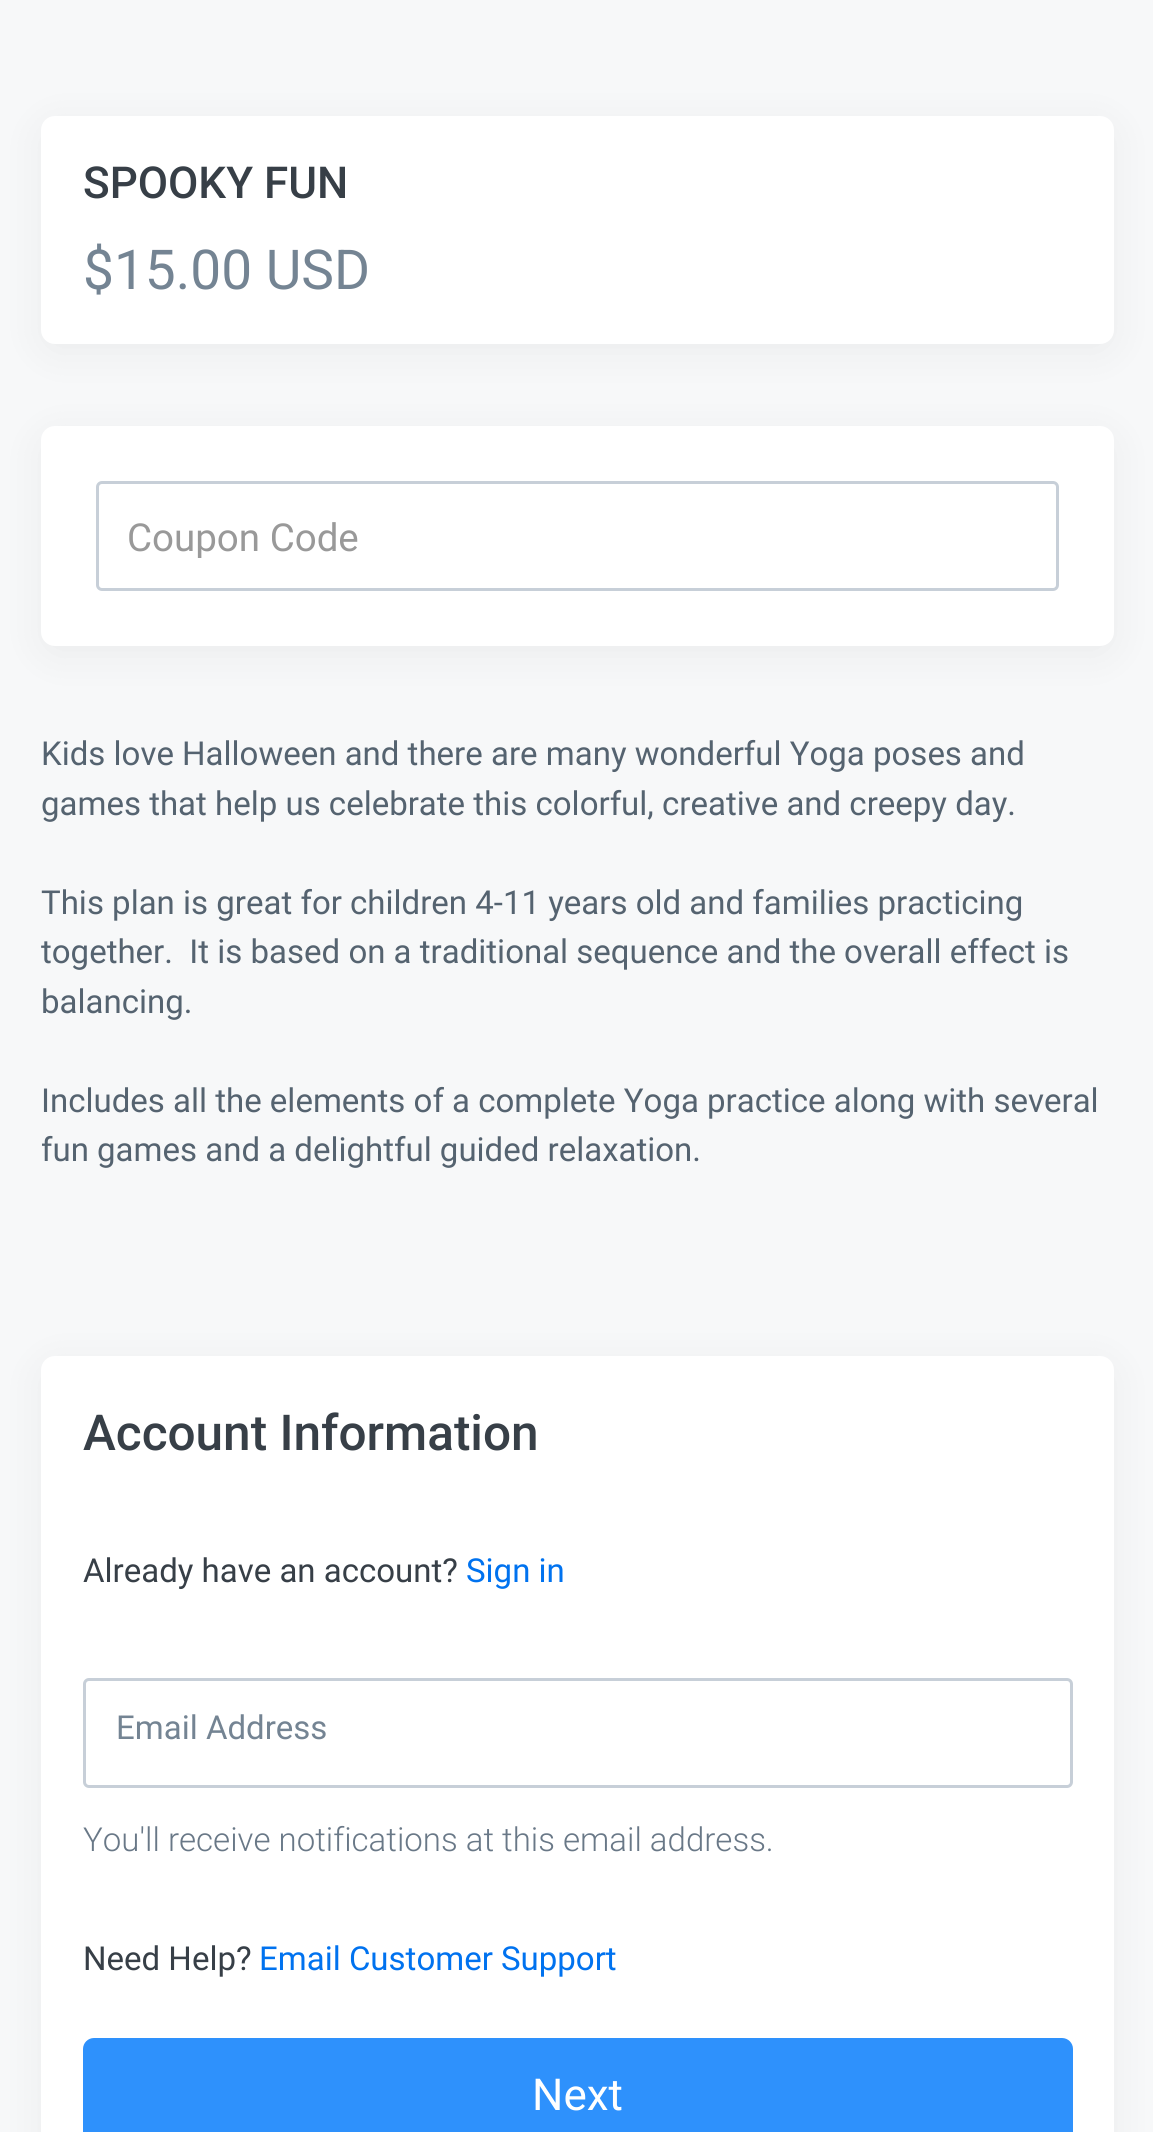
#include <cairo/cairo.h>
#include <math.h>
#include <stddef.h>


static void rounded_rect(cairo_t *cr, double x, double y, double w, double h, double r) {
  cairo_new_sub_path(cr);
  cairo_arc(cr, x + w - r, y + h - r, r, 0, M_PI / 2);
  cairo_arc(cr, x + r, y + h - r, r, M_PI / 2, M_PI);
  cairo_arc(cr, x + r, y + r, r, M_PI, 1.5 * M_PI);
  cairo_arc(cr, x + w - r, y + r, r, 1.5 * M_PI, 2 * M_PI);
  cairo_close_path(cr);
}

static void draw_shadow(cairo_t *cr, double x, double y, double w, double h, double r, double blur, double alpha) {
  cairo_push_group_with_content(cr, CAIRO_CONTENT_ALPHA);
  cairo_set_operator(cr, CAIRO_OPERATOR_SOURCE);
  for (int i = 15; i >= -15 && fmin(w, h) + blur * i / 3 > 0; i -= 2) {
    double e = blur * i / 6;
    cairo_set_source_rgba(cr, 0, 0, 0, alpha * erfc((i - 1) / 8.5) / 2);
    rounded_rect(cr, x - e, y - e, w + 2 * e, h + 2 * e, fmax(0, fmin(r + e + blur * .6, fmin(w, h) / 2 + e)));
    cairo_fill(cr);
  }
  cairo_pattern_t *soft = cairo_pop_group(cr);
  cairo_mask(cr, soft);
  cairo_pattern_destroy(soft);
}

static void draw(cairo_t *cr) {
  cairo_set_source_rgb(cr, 247 / 255.0, 248 / 255.0, 249 / 255.0);
  cairo_paint(cr);
  cairo_set_source_rgb(cr, 0, 0, 0);
  draw_shadow(cr, 41, 124, 1073, 228, 14, 20.5, 0.05);
  cairo_set_source_rgb(cr, 1, 1, 1);
  rounded_rect(cr, 41, 116, 1073, 228, 14);
  cairo_fill(cr);
  cairo_set_source_rgb(cr, 0, 0, 0);
  draw_shadow(cr, 41, 435, 1073, 220, 14, 20.5, 0.05);
  cairo_set_source_rgb(cr, 1, 1, 1);
  rounded_rect(cr, 41, 426, 1073, 220, 14);
  cairo_fill(cr);
  rounded_rect(cr, 97.5, 482.5, 960, 107, 4.5);
  cairo_set_source_rgb(cr, 199 / 255.0, 207 / 255.0, 216 / 255.0);
  cairo_set_line_width(cr, 3);
  cairo_stroke(cr);
  cairo_set_source_rgb(cr, 0, 0, 0);
  draw_shadow(cr, 41, 1364, 1073, 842, 14, 20.5, 0.05);
  cairo_set_source_rgb(cr, 1, 1, 1);
  rounded_rect(cr, 41, 1356, 1073, 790, 14);
  cairo_fill(cr);
  rounded_rect(cr, 84.5, 1679.5, 987, 107, 4.5);
  cairo_set_source_rgb(cr, 199 / 255.0, 207 / 255.0, 216 / 255.0);
  cairo_stroke(cr);
  cairo_set_source_rgb(cr, 46 / 255.0, 145 / 255.0, 252 / 255.0);
  rounded_rect(cr, 84.5, 2039.5, 987, 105, 9.5);
  cairo_fill_preserve(cr);
  cairo_stroke(cr);
  cairo_select_font_face(cr, "Roboto Medium", CAIRO_FONT_SLANT_NORMAL, CAIRO_FONT_WEIGHT_NORMAL);
  cairo_set_font_size(cr, 44);
  cairo_set_source_rgb(cr, 55 / 255.0, 63 / 255.0, 71 / 255.0);
  cairo_move_to(cr, 83, 198);
  cairo_show_text(cr, "SPOOKY FUN");
  cairo_select_font_face(cr, "Roboto", CAIRO_FONT_SLANT_NORMAL, CAIRO_FONT_WEIGHT_NORMAL);
  cairo_set_font_size(cr, 55);
  cairo_set_source_rgb(cr, 116 / 255.0, 132 / 255.0, 147 / 255.0);
  cairo_move_to(cr, 83, 289);
  cairo_show_text(cr, "$15.00 USD");
  cairo_save(cr);
  cairo_rectangle(cr, 127, 514, 902, 44);
  cairo_clip(cr);
  cairo_set_font_size(cr, 38.5);
  cairo_set_source_rgb(cr, 153 / 255.0, 153 / 255.0, 153 / 255.0);
  cairo_move_to(cr, 127, 551);
  cairo_show_text(cr, "Coupon Code");
  cairo_restore(cr);
  cairo_set_font_size(cr, 33);
  cairo_set_source_rgb(cr, 85 / 255.0, 99 / 255.0, 112 / 255.0);
  cairo_move_to(cr, 41, 765);
  cairo_show_text(cr, "Kids love Halloween and there are many wonderful Yoga poses and");
  cairo_move_to(cr, 41, 815);
  cairo_show_text(cr, "games that help us celebrate this colorful, creative and creepy day.");
  cairo_move_to(cr, 41, 914);
  cairo_show_text(cr, "This plan is great for children 4-11 years old and families practicing");
  cairo_move_to(cr, 41, 963);
  cairo_show_text(cr, "together.  It is based on a traditional sequence and the overall effect is");
  cairo_move_to(cr, 41, 1013);
  cairo_show_text(cr, "balancing.");
  cairo_move_to(cr, 41, 1112);
  cairo_show_text(cr, "Includes all the elements of a complete Yoga practice along with several");
  cairo_move_to(cr, 41, 1161);
  cairo_show_text(cr, "fun games and a delightful guided relaxation.");
  cairo_select_font_face(cr, "Roboto Medium", CAIRO_FONT_SLANT_NORMAL, CAIRO_FONT_WEIGHT_NORMAL);
  cairo_set_font_size(cr, 49.5);
  cairo_set_source_rgb(cr, 55 / 255.0, 63 / 255.0, 71 / 255.0);
  cairo_move_to(cr, 83, 1450);
  cairo_show_text(cr, "Account Information");
  cairo_select_font_face(cr, "Roboto", CAIRO_FONT_SLANT_NORMAL, CAIRO_FONT_WEIGHT_NORMAL);
  cairo_set_font_size(cr, 33);
  cairo_move_to(cr, 83, 1582);
  cairo_show_text(cr, "Already have an account?");
  cairo_set_source_rgb(cr, 0, 114 / 255.0, 239 / 255.0);
  cairo_move_to(cr, 466, 1582);
  cairo_show_text(cr, "Sign in");
  cairo_set_source_rgb(cr, 116 / 255.0, 132 / 255.0, 147 / 255.0);
  cairo_move_to(cr, 116, 1739);
  cairo_show_text(cr, "Email Address");
  cairo_select_font_face(cr, "Roboto Light", CAIRO_FONT_SLANT_NORMAL, CAIRO_FONT_WEIGHT_NORMAL);
  cairo_set_source_rgb(cr, 105 / 255.0, 120 / 255.0, 135 / 255.0);
  cairo_move_to(cr, 83, 1851);
  cairo_show_text(cr, "You'll receive notifications at this email address.");
  cairo_select_font_face(cr, "Roboto", CAIRO_FONT_SLANT_NORMAL, CAIRO_FONT_WEIGHT_NORMAL);
  cairo_set_source_rgb(cr, 55 / 255.0, 63 / 255.0, 71 / 255.0);
  cairo_move_to(cr, 83, 1970);
  cairo_show_text(cr, "Need Help?");
  cairo_set_source_rgb(cr, 0, 114 / 255.0, 239 / 255.0);
  cairo_move_to(cr, 259, 1970);
  cairo_show_text(cr, "Email Customer Support");
  cairo_set_font_size(cr, 44);
  cairo_set_source_rgb(cr, 1, 1, 1);
  cairo_move_to(cr, 532, 2110);
  cairo_show_text(cr, "Next");
}

int main(void) {
  cairo_surface_t *surface = cairo_image_surface_create(CAIRO_FORMAT_RGB24, 1153, 2132);
  cairo_t *cr = cairo_create(surface);
  cairo_font_options_t *options = cairo_font_options_create();
  cairo_font_options_set_hint_metrics(options, CAIRO_HINT_METRICS_OFF);
  cairo_font_options_set_hint_style(options, CAIRO_HINT_STYLE_NONE);
  cairo_set_font_options(cr, options);
  cairo_set_miter_limit(cr, 4);
  draw(cr);
  cairo_surface_write_to_png(surface, "out.png");
  cairo_font_options_destroy(options);
  cairo_destroy(cr);
  cairo_surface_destroy(surface);
  return 0;
}
